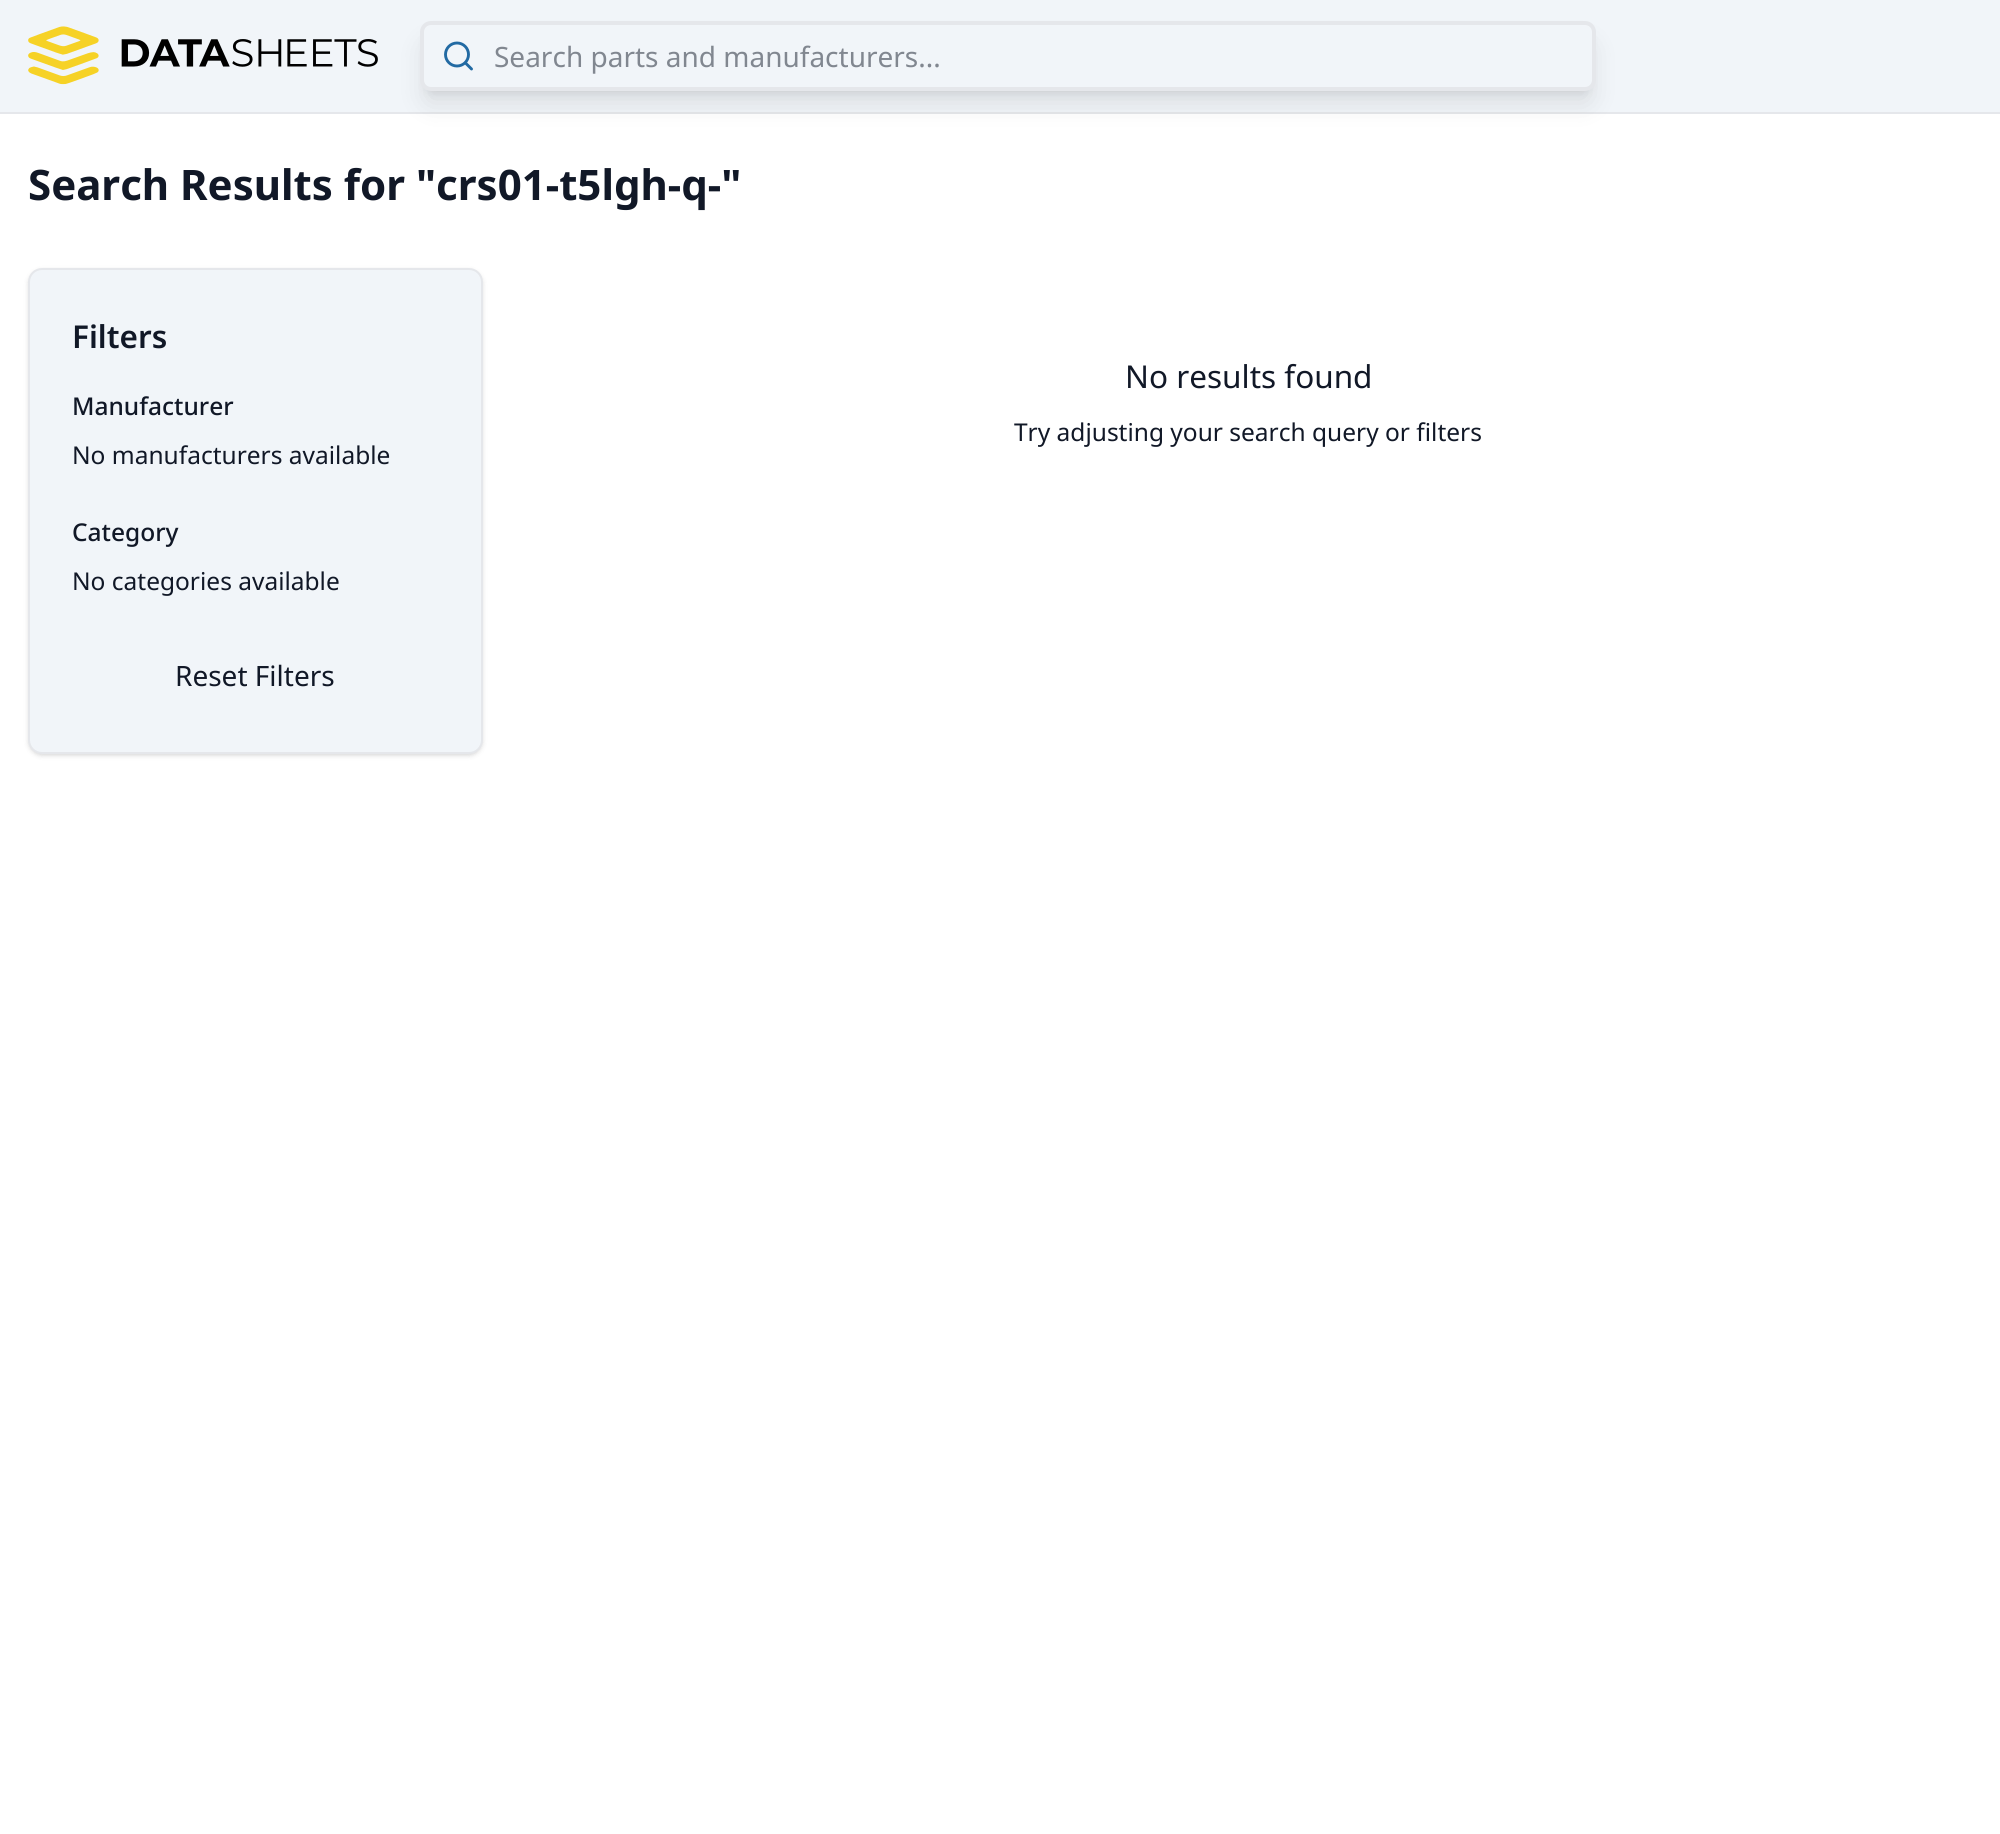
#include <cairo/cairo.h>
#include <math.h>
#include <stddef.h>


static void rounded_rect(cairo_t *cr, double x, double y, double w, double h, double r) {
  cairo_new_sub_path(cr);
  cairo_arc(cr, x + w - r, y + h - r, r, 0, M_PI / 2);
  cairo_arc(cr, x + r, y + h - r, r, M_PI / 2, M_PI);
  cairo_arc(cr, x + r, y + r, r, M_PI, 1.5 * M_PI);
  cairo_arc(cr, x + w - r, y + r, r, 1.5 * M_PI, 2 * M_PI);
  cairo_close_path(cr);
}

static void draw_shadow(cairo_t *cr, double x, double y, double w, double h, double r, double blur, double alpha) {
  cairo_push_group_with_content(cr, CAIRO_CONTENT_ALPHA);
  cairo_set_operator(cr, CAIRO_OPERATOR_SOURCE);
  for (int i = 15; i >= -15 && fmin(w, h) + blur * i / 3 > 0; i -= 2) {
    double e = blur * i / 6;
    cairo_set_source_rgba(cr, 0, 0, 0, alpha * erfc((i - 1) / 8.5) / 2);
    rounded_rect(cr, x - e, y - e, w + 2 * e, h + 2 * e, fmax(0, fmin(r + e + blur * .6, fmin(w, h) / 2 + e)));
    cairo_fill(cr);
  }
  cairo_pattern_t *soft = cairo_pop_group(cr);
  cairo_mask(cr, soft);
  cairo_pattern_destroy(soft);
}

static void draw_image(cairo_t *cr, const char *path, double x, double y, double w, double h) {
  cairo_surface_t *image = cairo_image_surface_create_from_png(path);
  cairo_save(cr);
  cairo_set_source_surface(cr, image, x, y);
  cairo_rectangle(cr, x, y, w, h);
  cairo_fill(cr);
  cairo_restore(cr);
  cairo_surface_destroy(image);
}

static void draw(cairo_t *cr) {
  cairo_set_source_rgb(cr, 1, 1, 1);
  cairo_paint(cr);
  cairo_set_source_rgb(cr, 241 / 255.0, 245 / 255.0, 249 / 255.0);
  cairo_rectangle(cr, 0, 0, 2000, 112);
  cairo_fill(cr);
  cairo_set_source_rgb(cr, 229 / 255.0, 231 / 255.0, 235 / 255.0);
  cairo_rectangle(cr, 0, 112, 2000, 2);
  cairo_fill(cr);
  draw_image(cr, "images/1.png", 28, 26, 350, 59);
  cairo_set_source_rgb(cr, 0, 0, 0);
  draw_shadow(cr, 427, 35, 1162, 56, 4, 5, 0.1);
  draw_shadow(cr, 425, 44, 1166, 59, 5, 13, 0.1);
  cairo_set_source_rgb(cr, 241 / 255.0, 245 / 255.0, 249 / 255.0);
  rounded_rect(cr, 422, 23, 1172, 66, 9);
  cairo_fill_preserve(cr);
  cairo_set_source_rgb(cr, 229 / 255.0, 231 / 255.0, 235 / 255.0);
  cairo_set_line_width(cr, 4);
  cairo_stroke(cr);
  cairo_arc(cr, 457, 54.5, 11.5, 0, 2 * M_PI);
  cairo_set_source_rgb(cr, 34 / 255.0, 106 / 255.0, 163 / 255.0);
  cairo_set_line_width(cr, 2.9);
  cairo_stroke(cr);
  cairo_new_path(cr);
  cairo_move_to(cr, 471.5, 69);
  cairo_line_to(cr, 465.5, 63);
  cairo_set_line_cap(cr, CAIRO_LINE_CAP_ROUND);
  cairo_set_line_join(cr, CAIRO_LINE_JOIN_ROUND);
  cairo_stroke(cr);
  cairo_set_source_rgb(cr, 0, 0, 0);
  draw_shadow(cr, 30, 271, 451, 483, 12, 2, 0.1);
  draw_shadow(cr, 28, 270, 455, 486, 14, 2.5, 0.1);
  cairo_set_source_rgb(cr, 241 / 255.0, 245 / 255.0, 249 / 255.0);
  rounded_rect(cr, 29, 269, 453, 484, 13);
  cairo_fill_preserve(cr);
  cairo_set_source_rgb(cr, 229 / 255.0, 231 / 255.0, 235 / 255.0);
  cairo_set_line_width(cr, 2);
  cairo_set_line_cap(cr, CAIRO_LINE_CAP_BUTT);
  cairo_set_line_join(cr, CAIRO_LINE_JOIN_MITER);
  cairo_stroke(cr);
  cairo_select_font_face(cr, "Noto Sans", CAIRO_FONT_SLANT_NORMAL, CAIRO_FONT_WEIGHT_NORMAL);
  cairo_set_font_size(cr, 28);
  cairo_set_source_rgb(cr, 129 / 255.0, 135 / 255.0, 144 / 255.0);
  cairo_move_to(cr, 494, 67);
  cairo_show_text(cr, "Search parts and manufacturers...");
  cairo_select_font_face(cr, "Noto Sans", CAIRO_FONT_SLANT_NORMAL, CAIRO_FONT_WEIGHT_BOLD);
  cairo_set_font_size(cr, 42);
  cairo_set_source_rgb(cr, 17 / 255.0, 24 / 255.0, 39 / 255.0);
  cairo_move_to(cr, 28, 200);
  cairo_show_text(cr, "Search Results for \"crs01-t5lgh-q-\"");
  cairo_select_font_face(cr, "Noto Sans SemiBold", CAIRO_FONT_SLANT_NORMAL, CAIRO_FONT_WEIGHT_NORMAL);
  cairo_set_font_size(cr, 31.5);
  cairo_move_to(cr, 72, 348);
  cairo_show_text(cr, "Filters");
  cairo_select_font_face(cr, "Noto Sans Medium", CAIRO_FONT_SLANT_NORMAL, CAIRO_FONT_WEIGHT_NORMAL);
  cairo_set_font_size(cr, 24.5);
  cairo_move_to(cr, 72, 415);
  cairo_show_text(cr, "Manufacturer");
  cairo_select_font_face(cr, "Noto Sans", CAIRO_FONT_SLANT_NORMAL, CAIRO_FONT_WEIGHT_NORMAL);
  cairo_move_to(cr, 72, 464);
  cairo_show_text(cr, "No manufacturers available");
  cairo_select_font_face(cr, "Noto Sans Medium", CAIRO_FONT_SLANT_NORMAL, CAIRO_FONT_WEIGHT_NORMAL);
  cairo_move_to(cr, 72, 541);
  cairo_show_text(cr, "Category");
  cairo_select_font_face(cr, "Noto Sans", CAIRO_FONT_SLANT_NORMAL, CAIRO_FONT_WEIGHT_NORMAL);
  cairo_move_to(cr, 72, 590);
  cairo_show_text(cr, "No categories available");
  cairo_set_font_size(cr, 28);
  cairo_move_to(cr, 175, 686);
  cairo_show_text(cr, "Reset Filters");
  cairo_set_font_size(cr, 31.5);
  cairo_move_to(cr, 1125, 388);
  cairo_show_text(cr, "No results found");
  cairo_set_font_size(cr, 24.5);
  cairo_move_to(cr, 1014, 441);
  cairo_show_text(cr, "Try adjusting your search query or filters");
}

int main(void) {
  cairo_surface_t *surface = cairo_image_surface_create(CAIRO_FORMAT_RGB24, 2000, 1834);
  cairo_t *cr = cairo_create(surface);
  cairo_font_options_t *options = cairo_font_options_create();
  cairo_font_options_set_hint_metrics(options, CAIRO_HINT_METRICS_OFF);
  cairo_font_options_set_hint_style(options, CAIRO_HINT_STYLE_NONE);
  cairo_set_font_options(cr, options);
  cairo_set_miter_limit(cr, 4);
  draw(cr);
  cairo_surface_write_to_png(surface, "out.png");
  cairo_font_options_destroy(options);
  cairo_destroy(cr);
  cairo_surface_destroy(surface);
  return 0;
}
